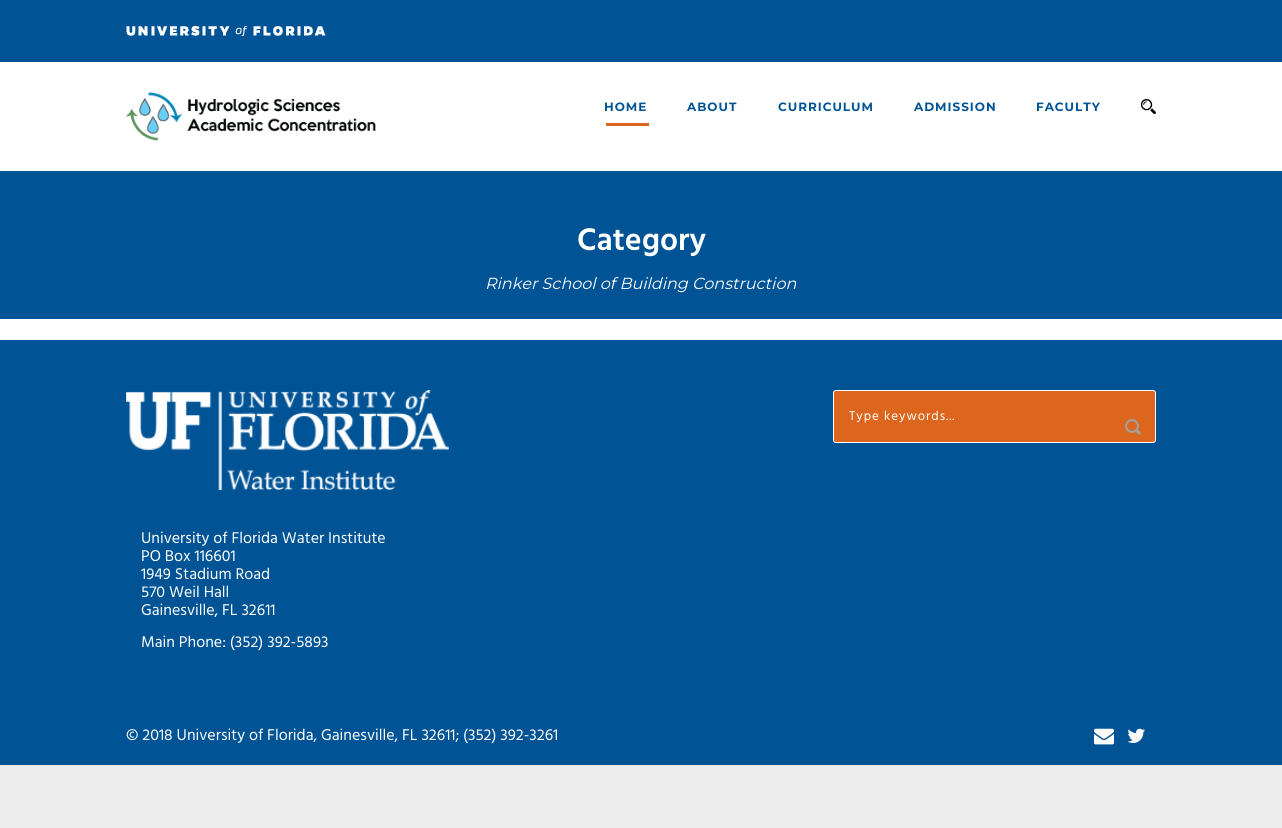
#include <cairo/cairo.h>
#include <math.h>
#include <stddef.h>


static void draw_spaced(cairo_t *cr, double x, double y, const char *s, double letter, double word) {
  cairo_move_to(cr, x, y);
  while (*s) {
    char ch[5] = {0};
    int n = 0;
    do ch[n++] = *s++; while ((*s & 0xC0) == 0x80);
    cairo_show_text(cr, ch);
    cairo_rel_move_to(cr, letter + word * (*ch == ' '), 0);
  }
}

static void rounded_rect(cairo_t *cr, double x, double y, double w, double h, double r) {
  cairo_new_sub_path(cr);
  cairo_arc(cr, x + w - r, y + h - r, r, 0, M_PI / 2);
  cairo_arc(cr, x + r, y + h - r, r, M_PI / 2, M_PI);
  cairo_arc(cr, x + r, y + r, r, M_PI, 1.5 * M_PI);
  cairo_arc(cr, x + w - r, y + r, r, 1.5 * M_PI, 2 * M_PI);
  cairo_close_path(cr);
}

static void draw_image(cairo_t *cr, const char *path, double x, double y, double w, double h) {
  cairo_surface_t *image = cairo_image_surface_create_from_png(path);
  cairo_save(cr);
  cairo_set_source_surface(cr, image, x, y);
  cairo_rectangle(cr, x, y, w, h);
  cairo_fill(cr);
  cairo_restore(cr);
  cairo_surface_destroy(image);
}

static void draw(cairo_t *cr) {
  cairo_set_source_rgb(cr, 237 / 255.0, 237 / 255.0, 237 / 255.0);
  cairo_paint(cr);
  cairo_set_source_rgb(cr, 1, 1, 1);
  cairo_rectangle(cr, 0, 62, 1282, 278);
  cairo_fill(cr);
  cairo_set_source_rgb(cr, 0, 84 / 255.0, 150 / 255.0);
  cairo_rectangle(cr, 0, 0, 1282, 62);
  cairo_fill(cr);
  draw_image(cr, "images/1.png", 126, 26, 200, 10);
  draw_image(cr, "images/2.png", 126, 92, 250, 49);
  draw_image(cr, "images/3.png", 1141, 99, 15, 15);
  cairo_set_source_rgb(cr, 221 / 255.0, 102 / 255.0, 30 / 255.0);
  cairo_rectangle(cr, 606, 123, 43, 3);
  cairo_fill(cr);
  cairo_set_source_rgb(cr, 0, 84 / 255.0, 150 / 255.0);
  cairo_rectangle(cr, 0, 171, 1282, 148);
  cairo_fill(cr);
  cairo_rectangle(cr, 0, 340, 1282, 425);
  cairo_fill(cr);
  cairo_set_source_rgb(cr, 221 / 255.0, 102 / 255.0, 30 / 255.0);
  rounded_rect(cr, 833.5, 390.5, 322, 52, 2.5);
  cairo_fill_preserve(cr);
  cairo_set_source_rgb(cr, 1, 1, 1);
  cairo_set_line_width(cr, 1);
  cairo_stroke(cr);
  draw_image(cr, "images/4.png", 1125, 419, 16, 16);
  draw_image(cr, "images/5.png", 126, 390, 323, 100);
  draw_image(cr, "images/6.png", 1094, 728, 20, 17);
  draw_image(cr, "images/7.png", 1127, 728, 18, 15);
  cairo_select_font_face(cr, "Montserrat", CAIRO_FONT_SLANT_NORMAL, CAIRO_FONT_WEIGHT_BOLD);
  cairo_set_font_size(cr, 12);
  cairo_set_source_rgb(cr, 0, 84 / 255.0, 150 / 255.0);
  draw_spaced(cr, 604, 111, "HOME", 1, 0);
  draw_spaced(cr, 687, 111, "ABOUT", 1, 0);
  draw_spaced(cr, 778, 111, "CURRICULUM", 1, 0);
  draw_spaced(cr, 914, 111, "ADMISSION", 1, 0);
  draw_spaced(cr, 1036, 111, "FACULTY", 1, 0);
  cairo_select_font_face(cr, "Hind SemiBold", CAIRO_FONT_SLANT_NORMAL, CAIRO_FONT_WEIGHT_NORMAL);
  cairo_set_font_size(cr, 32);
  cairo_set_source_rgb(cr, 1, 1, 1);
  cairo_move_to(cr, 577, 250);
  cairo_show_text(cr, "Category");
  cairo_select_font_face(cr, "Montserrat", CAIRO_FONT_SLANT_ITALIC, CAIRO_FONT_WEIGHT_NORMAL);
  cairo_set_font_size(cr, 16);
  cairo_move_to(cr, 485, 289);
  cairo_show_text(cr, "Rinker School of Building Construction");
  cairo_select_font_face(cr, "Hind", CAIRO_FONT_SLANT_NORMAL, CAIRO_FONT_WEIGHT_NORMAL);
  cairo_set_font_size(cr, 13);
  draw_spaced(cr, 849, 420, "Type keywords...", 1, 0);
  cairo_set_font_size(cr, 16);
  cairo_move_to(cr, 141, 543);
  cairo_show_text(cr, "University of Florida Water Institute");
  cairo_move_to(cr, 141, 561);
  cairo_show_text(cr, "PO Box 116601");
  cairo_move_to(cr, 141, 579);
  cairo_show_text(cr, "1949 Stadium Road");
  cairo_move_to(cr, 141, 597);
  cairo_show_text(cr, "570 Weil Hall");
  cairo_move_to(cr, 141, 615);
  cairo_show_text(cr, "Gainesville, FL 32611");
  cairo_move_to(cr, 141, 647);
  cairo_show_text(cr, "Main Phone: (352) 392-5893");
  cairo_move_to(cr, 126, 740);
  cairo_show_text(cr, "© 2018 University of Florida, Gainesville, FL 32611; (352) 392-3261");
}

int main(void) {
  cairo_surface_t *surface = cairo_image_surface_create(CAIRO_FORMAT_RGB24, 1282, 828);
  cairo_t *cr = cairo_create(surface);
  cairo_font_options_t *options = cairo_font_options_create();
  cairo_font_options_set_hint_metrics(options, CAIRO_HINT_METRICS_OFF);
  cairo_font_options_set_hint_style(options, CAIRO_HINT_STYLE_NONE);
  cairo_set_font_options(cr, options);
  cairo_set_miter_limit(cr, 4);
  draw(cr);
  cairo_surface_write_to_png(surface, "out.png");
  cairo_font_options_destroy(options);
  cairo_destroy(cr);
  cairo_surface_destroy(surface);
  return 0;
}
